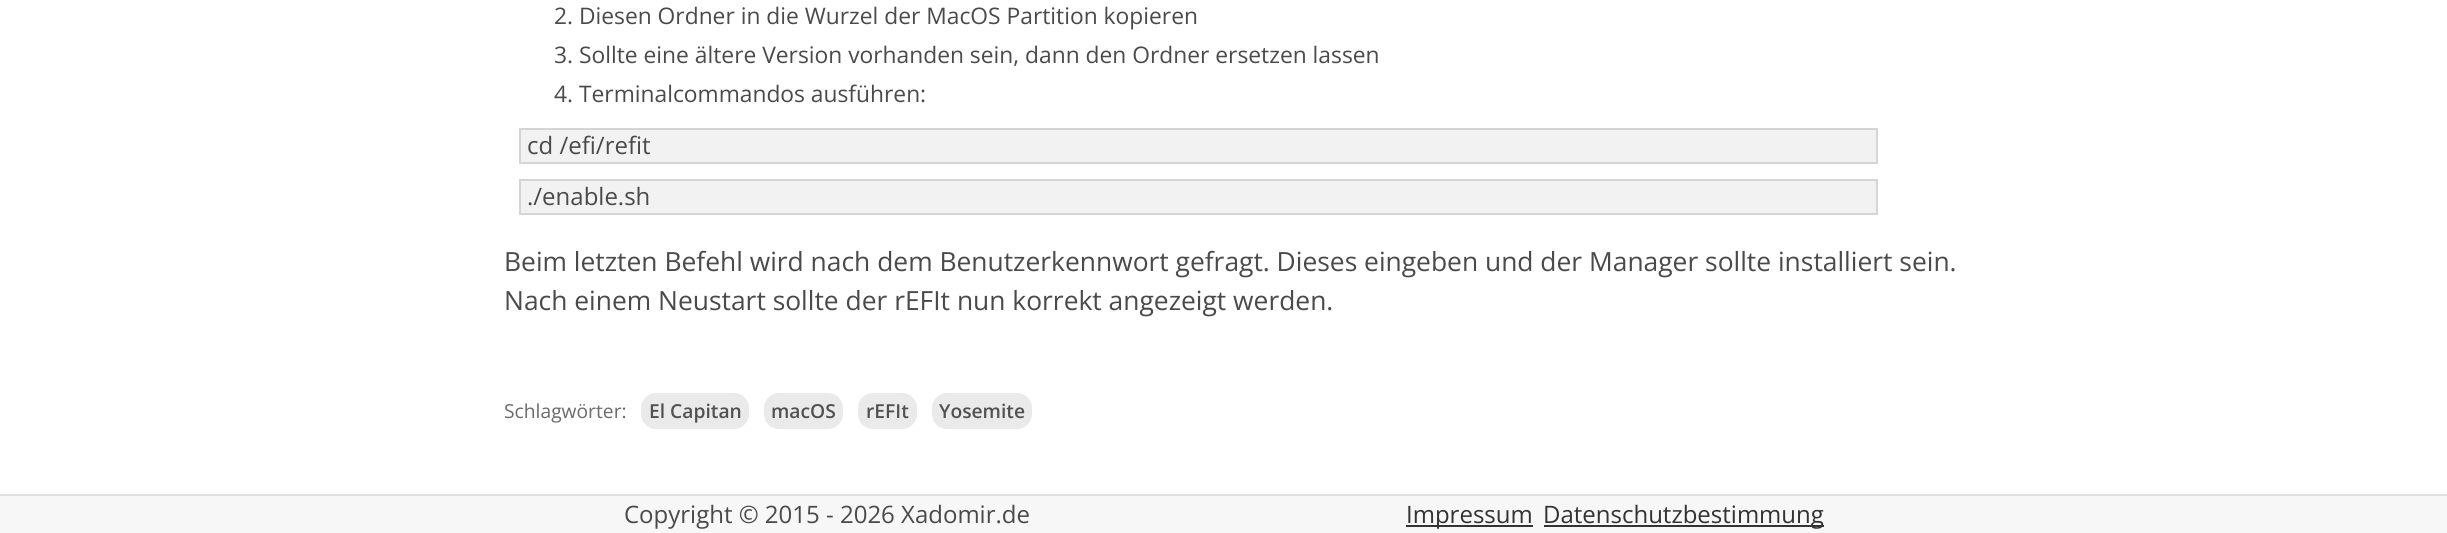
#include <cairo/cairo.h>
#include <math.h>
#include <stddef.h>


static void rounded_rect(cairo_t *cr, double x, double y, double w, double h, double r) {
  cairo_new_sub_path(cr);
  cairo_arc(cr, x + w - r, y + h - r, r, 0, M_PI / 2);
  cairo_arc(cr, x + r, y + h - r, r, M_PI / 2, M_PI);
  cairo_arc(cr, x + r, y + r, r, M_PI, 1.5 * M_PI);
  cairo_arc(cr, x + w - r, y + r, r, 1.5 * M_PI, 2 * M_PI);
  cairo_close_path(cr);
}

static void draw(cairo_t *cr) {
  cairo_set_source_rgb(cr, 1, 1, 1);
  cairo_paint(cr);
  cairo_set_source_rgb(cr, 242 / 255.0, 242 / 255.0, 242 / 255.0);
  cairo_rectangle(cr, 520, 129, 1357, 34);
  cairo_fill_preserve(cr);
  cairo_set_source_rgb(cr, 213 / 255.0, 213 / 255.0, 213 / 255.0);
  cairo_stroke(cr);
  cairo_set_source_rgb(cr, 242 / 255.0, 242 / 255.0, 242 / 255.0);
  cairo_rectangle(cr, 520, 180, 1357, 34);
  cairo_fill_preserve(cr);
  cairo_set_source_rgb(cr, 213 / 255.0, 213 / 255.0, 213 / 255.0);
  cairo_stroke(cr);
  cairo_set_source_rgb(cr, 234 / 255.0, 234 / 255.0, 234 / 255.0);
  rounded_rect(cr, 641, 393, 108, 36, 15);
  cairo_fill(cr);
  rounded_rect(cr, 764, 393, 79, 36, 15);
  cairo_fill(cr);
  rounded_rect(cr, 858, 393, 59, 36, 15);
  cairo_fill(cr);
  rounded_rect(cr, 932, 393, 100, 36, 15);
  cairo_fill(cr);
  cairo_set_source_rgb(cr, 247 / 255.0, 247 / 255.0, 247 / 255.0);
  cairo_rectangle(cr, 0, 496, 2447, 37);
  cairo_fill(cr);
  cairo_set_source_rgb(cr, 224 / 255.0, 224 / 255.0, 224 / 255.0);
  cairo_rectangle(cr, 0, 494, 2447, 2);
  cairo_fill(cr);
  cairo_set_source_rgb(cr, 51 / 255.0, 51 / 255.0, 51 / 255.0);
  cairo_rectangle(cr, 1406, 525, 127, 2);
  cairo_fill(cr);
  cairo_rectangle(cr, 1544, 525, 280, 2);
  cairo_fill(cr);
  cairo_select_font_face(cr, "Open Sans", CAIRO_FONT_SLANT_NORMAL, CAIRO_FONT_WEIGHT_NORMAL);
  cairo_set_font_size(cr, 22.8);
  cairo_set_source_rgb(cr, 74 / 255.0, 73 / 255.0, 75 / 255.0);
  cairo_move_to(cr, 554, 24);
  cairo_show_text(cr, "2. Diesen Ordner in die Wurzel der MacOS Partition kopieren");
  cairo_move_to(cr, 554, 63);
  cairo_show_text(cr, "3. Sollte eine ältere Version vorhanden sein, dann den Ordner ersetzen lassen");
  cairo_move_to(cr, 554, 102);
  cairo_show_text(cr, "4. Terminalcommandos ausführen:");
  cairo_set_font_size(cr, 24);
  cairo_move_to(cr, 527, 154);
  cairo_show_text(cr, "cd /efi/refit");
  cairo_move_to(cr, 527, 205);
  cairo_show_text(cr, "./enable.sh");
  cairo_set_font_size(cr, 26.4);
  cairo_move_to(cr, 504, 271);
  cairo_show_text(cr, "Beim letzten Befehl wird nach dem Benutzerkennwort gefragt. Dieses eingeben und der Manager sollte installiert sein.");
  cairo_move_to(cr, 504, 310);
  cairo_show_text(cr, "Nach einem Neustart sollte der rEFIt nun korrekt angezeigt werden.");
  cairo_set_font_size(cr, 19.25);
  cairo_set_source_rgb(cr, 107 / 255.0, 107 / 255.0, 107 / 255.0);
  cairo_move_to(cr, 504, 418);
  cairo_show_text(cr, "Schlagwörter:");
  cairo_select_font_face(cr, "Open Sans SemiBold", CAIRO_FONT_SLANT_NORMAL, CAIRO_FONT_WEIGHT_NORMAL);
  cairo_set_source_rgb(cr, 81 / 255.0, 81 / 255.0, 81 / 255.0);
  cairo_move_to(cr, 649, 418);
  cairo_show_text(cr, "El Capitan");
  cairo_move_to(cr, 771, 418);
  cairo_show_text(cr, "macOS");
  cairo_move_to(cr, 866, 418);
  cairo_show_text(cr, "rEFIt");
  cairo_move_to(cr, 939, 418);
  cairo_show_text(cr, "Yosemite");
  cairo_select_font_face(cr, "Open Sans", CAIRO_FONT_SLANT_NORMAL, CAIRO_FONT_WEIGHT_NORMAL);
  cairo_set_font_size(cr, 24);
  cairo_set_source_rgb(cr, 74 / 255.0, 73 / 255.0, 75 / 255.0);
  cairo_move_to(cr, 624, 523);
  cairo_show_text(cr, "Copyright © 2015 - 2026 Xadomir.de");
  cairo_set_source_rgb(cr, 51 / 255.0, 51 / 255.0, 51 / 255.0);
  cairo_move_to(cr, 1406, 523);
  cairo_show_text(cr, "Impressum");
  cairo_move_to(cr, 1543, 523);
  cairo_show_text(cr, "Datenschutzbestimmung");
}

int main(void) {
  cairo_surface_t *surface = cairo_image_surface_create(CAIRO_FORMAT_RGB24, 2447, 533);
  cairo_t *cr = cairo_create(surface);
  cairo_font_options_t *options = cairo_font_options_create();
  cairo_font_options_set_hint_metrics(options, CAIRO_HINT_METRICS_OFF);
  cairo_font_options_set_hint_style(options, CAIRO_HINT_STYLE_NONE);
  cairo_set_font_options(cr, options);
  cairo_set_miter_limit(cr, 4);
  draw(cr);
  cairo_surface_write_to_png(surface, "out.png");
  cairo_font_options_destroy(options);
  cairo_destroy(cr);
  cairo_surface_destroy(surface);
  return 0;
}
